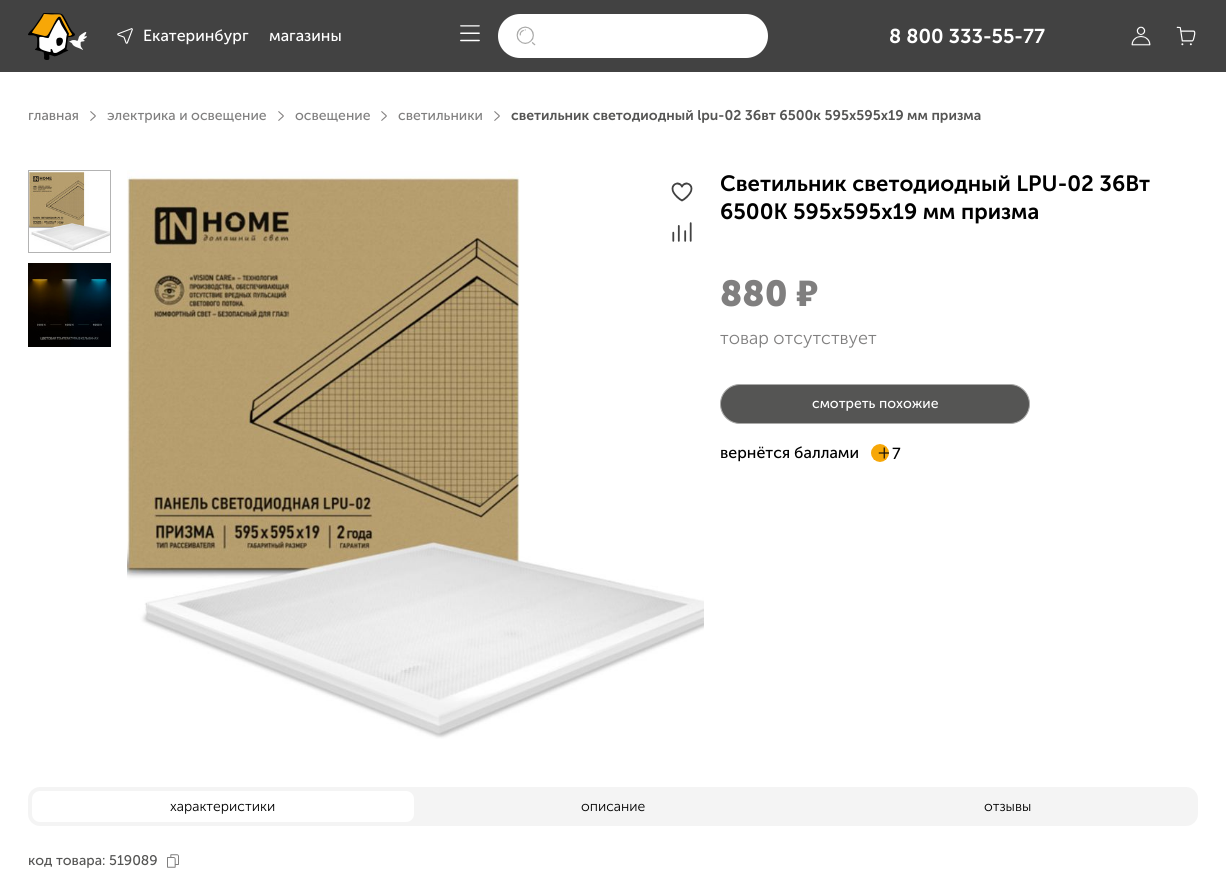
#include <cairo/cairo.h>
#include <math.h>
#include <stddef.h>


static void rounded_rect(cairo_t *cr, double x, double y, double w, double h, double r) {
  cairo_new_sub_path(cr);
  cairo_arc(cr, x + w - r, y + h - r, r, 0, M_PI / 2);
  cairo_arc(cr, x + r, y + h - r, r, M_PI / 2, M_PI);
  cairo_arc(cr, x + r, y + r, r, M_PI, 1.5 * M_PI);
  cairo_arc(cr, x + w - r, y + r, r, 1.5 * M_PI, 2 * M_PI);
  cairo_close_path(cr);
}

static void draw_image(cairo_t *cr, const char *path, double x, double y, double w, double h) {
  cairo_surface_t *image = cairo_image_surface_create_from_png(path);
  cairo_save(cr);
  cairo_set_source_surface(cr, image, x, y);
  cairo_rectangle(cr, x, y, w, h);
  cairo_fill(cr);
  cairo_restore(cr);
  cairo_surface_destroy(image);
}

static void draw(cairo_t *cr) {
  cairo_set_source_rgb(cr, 1, 1, 1);
  cairo_paint(cr);
  cairo_set_source_rgb(cr, 66 / 255.0, 66 / 255.0, 66 / 255.0);
  cairo_rectangle(cr, 0, 0, 1226, 72);
  cairo_fill(cr);
  draw_image(cr, "images/1.png", 28, 13, 59, 47);
  draw_image(cr, "images/2.png", 117, 28, 16, 16);
  draw_image(cr, "images/3.png", 460, 25, 20, 17);
  cairo_set_source_rgb(cr, 1, 1, 1);
  rounded_rect(cr, 498, 14, 270, 44, 22);
  cairo_fill(cr);
  draw_image(cr, "images/4.png", 516, 26, 20, 20);
  draw_image(cr, "images/5.png", 1131, 26, 20, 20);
  draw_image(cr, "images/6.png", 1176, 26, 20, 20);
  draw_image(cr, "images/7.png", 90, 111, 6, 10);
  draw_image(cr, "images/7.png", 278, 111, 6, 10);
  draw_image(cr, "images/7.png", 381, 111, 6, 10);
  draw_image(cr, "images/7.png", 494, 111, 6, 10);
  cairo_rectangle(cr, 28.5, 170.5, 82, 82);
  cairo_set_source_rgb(cr, 179 / 255.0, 179 / 255.0, 179 / 255.0);
  cairo_set_line_width(cr, 1);
  cairo_stroke(cr);
  draw_image(cr, "images/8.png", 29, 171, 81, 80);
  draw_image(cr, "images/9.png", 28, 263, 83, 84);
  draw_image(cr, "images/10.png", 127, 170, 577, 569);
  draw_image(cr, "images/11.png", 671, 182, 22, 20);
  draw_image(cr, "images/12.png", 672, 222, 20, 20);
  cairo_set_source_rgb(cr, 85 / 255.0, 85 / 255.0, 84 / 255.0);
  rounded_rect(cr, 720.5, 384.5, 309, 39, 19.5);
  cairo_fill_preserve(cr);
  cairo_set_source_rgb(cr, 170 / 255.0, 170 / 255.0, 169 / 255.0);
  cairo_stroke(cr);
  draw_image(cr, "images/13.png", 871, 444, 18, 18);
  cairo_set_source_rgb(cr, 244 / 255.0, 244 / 255.0, 244 / 255.0);
  rounded_rect(cr, 28, 787, 1170, 39, 12);
  cairo_fill(cr);
  cairo_set_source_rgb(cr, 1, 1, 1);
  rounded_rect(cr, 32, 791, 382, 31, 8);
  cairo_fill(cr);
  draw_image(cr, "images/14.png", 167, 854, 12, 14);
  cairo_select_font_face(cr, "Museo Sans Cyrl", CAIRO_FONT_SLANT_NORMAL, CAIRO_FONT_WEIGHT_NORMAL);
  cairo_set_font_size(cr, 16);
  cairo_move_to(cr, 143, 41);
  cairo_show_text(cr, "Екатеринбург");
  cairo_move_to(cr, 269, 41);
  cairo_show_text(cr, "магазины");
  cairo_select_font_face(cr, "Museo Sans Cyrl SemiBold", CAIRO_FONT_SLANT_NORMAL, CAIRO_FONT_WEIGHT_NORMAL);
  cairo_set_font_size(cr, 20);
  cairo_move_to(cr, 889, 43);
  cairo_show_text(cr, "8 800 333-55-77");
  cairo_select_font_face(cr, "Museo Sans Cyrl", CAIRO_FONT_SLANT_NORMAL, CAIRO_FONT_WEIGHT_NORMAL);
  cairo_set_font_size(cr, 14);
  cairo_set_source_rgb(cr, 128 / 255.0, 127 / 255.0, 127 / 255.0);
  cairo_move_to(cr, 28, 120);
  cairo_show_text(cr, "главная");
  cairo_move_to(cr, 107, 120);
  cairo_show_text(cr, "электрика и освещение");
  cairo_move_to(cr, 295, 120);
  cairo_show_text(cr, "освещение");
  cairo_move_to(cr, 398, 120);
  cairo_show_text(cr, "светильники");
  cairo_select_font_face(cr, "Museo Sans Cyrl SemiBold", CAIRO_FONT_SLANT_NORMAL, CAIRO_FONT_WEIGHT_NORMAL);
  cairo_set_source_rgb(cr, 85 / 255.0, 85 / 255.0, 84 / 255.0);
  cairo_move_to(cr, 511, 120);
  cairo_show_text(cr, "светильник светодиодный lpu-02 36вт 6500к 595х595х19 мм призма");
  cairo_set_font_size(cr, 22);
  cairo_set_source_rgb(cr, 0, 0, 0);
  cairo_move_to(cr, 720, 191);
  cairo_show_text(cr, "Светильник светодиодный LPU-02 36Вт");
  cairo_move_to(cr, 720, 219);
  cairo_show_text(cr, "6500К 595х595х19 мм призма");
  cairo_select_font_face(cr, "Museo Sans Cyrl", CAIRO_FONT_SLANT_NORMAL, CAIRO_FONT_WEIGHT_BOLD);
  cairo_set_font_size(cr, 36);
  cairo_set_source_rgb(cr, 128 / 255.0, 127 / 255.0, 127 / 255.0);
  cairo_move_to(cr, 720, 306);
  cairo_show_text(cr, "880");
  cairo_select_font_face(cr, "Nunito Sans Black", CAIRO_FONT_SLANT_NORMAL, CAIRO_FONT_WEIGHT_NORMAL);
  cairo_move_to(cr, 796, 306);
  cairo_show_text(cr, "₽");
  cairo_select_font_face(cr, "Museo Sans Cyrl Light", CAIRO_FONT_SLANT_NORMAL, CAIRO_FONT_WEIGHT_NORMAL);
  cairo_set_font_size(cr, 18);
  cairo_move_to(cr, 720, 344);
  cairo_show_text(cr, "товар отсутствует");
  cairo_select_font_face(cr, "Museo Sans Cyrl", CAIRO_FONT_SLANT_NORMAL, CAIRO_FONT_WEIGHT_NORMAL);
  cairo_set_font_size(cr, 14);
  cairo_set_source_rgb(cr, 1, 1, 1);
  cairo_move_to(cr, 812, 408);
  cairo_show_text(cr, "смотреть похожие");
  cairo_set_font_size(cr, 16);
  cairo_set_source_rgb(cr, 0, 0, 0);
  cairo_move_to(cr, 720, 458);
  cairo_show_text(cr, "вернётся баллами");
  cairo_move_to(cr, 892, 459);
  cairo_show_text(cr, "7");
  cairo_select_font_face(cr, "Museo Sans Cyrl Light", CAIRO_FONT_SLANT_NORMAL, CAIRO_FONT_WEIGHT_NORMAL);
  cairo_set_font_size(cr, 14);
  cairo_move_to(cr, 170, 811);
  cairo_show_text(cr, "характеристики");
  cairo_move_to(cr, 581, 811);
  cairo_show_text(cr, "описание");
  cairo_move_to(cr, 984, 811);
  cairo_show_text(cr, "отзывы");
  cairo_select_font_face(cr, "Museo Sans Cyrl", CAIRO_FONT_SLANT_NORMAL, CAIRO_FONT_WEIGHT_NORMAL);
  cairo_set_source_rgb(cr, 85 / 255.0, 85 / 255.0, 84 / 255.0);
  cairo_move_to(cr, 28, 865);
  cairo_show_text(cr, "код товара:");
  cairo_move_to(cr, 109, 865);
  cairo_show_text(cr, "519089");
}

int main(void) {
  cairo_surface_t *surface = cairo_image_surface_create(CAIRO_FORMAT_RGB24, 1226, 890);
  cairo_t *cr = cairo_create(surface);
  cairo_font_options_t *options = cairo_font_options_create();
  cairo_font_options_set_hint_metrics(options, CAIRO_HINT_METRICS_OFF);
  cairo_font_options_set_hint_style(options, CAIRO_HINT_STYLE_NONE);
  cairo_set_font_options(cr, options);
  cairo_set_miter_limit(cr, 4);
  draw(cr);
  cairo_surface_write_to_png(surface, "out.png");
  cairo_font_options_destroy(options);
  cairo_destroy(cr);
  cairo_surface_destroy(surface);
  return 0;
}
